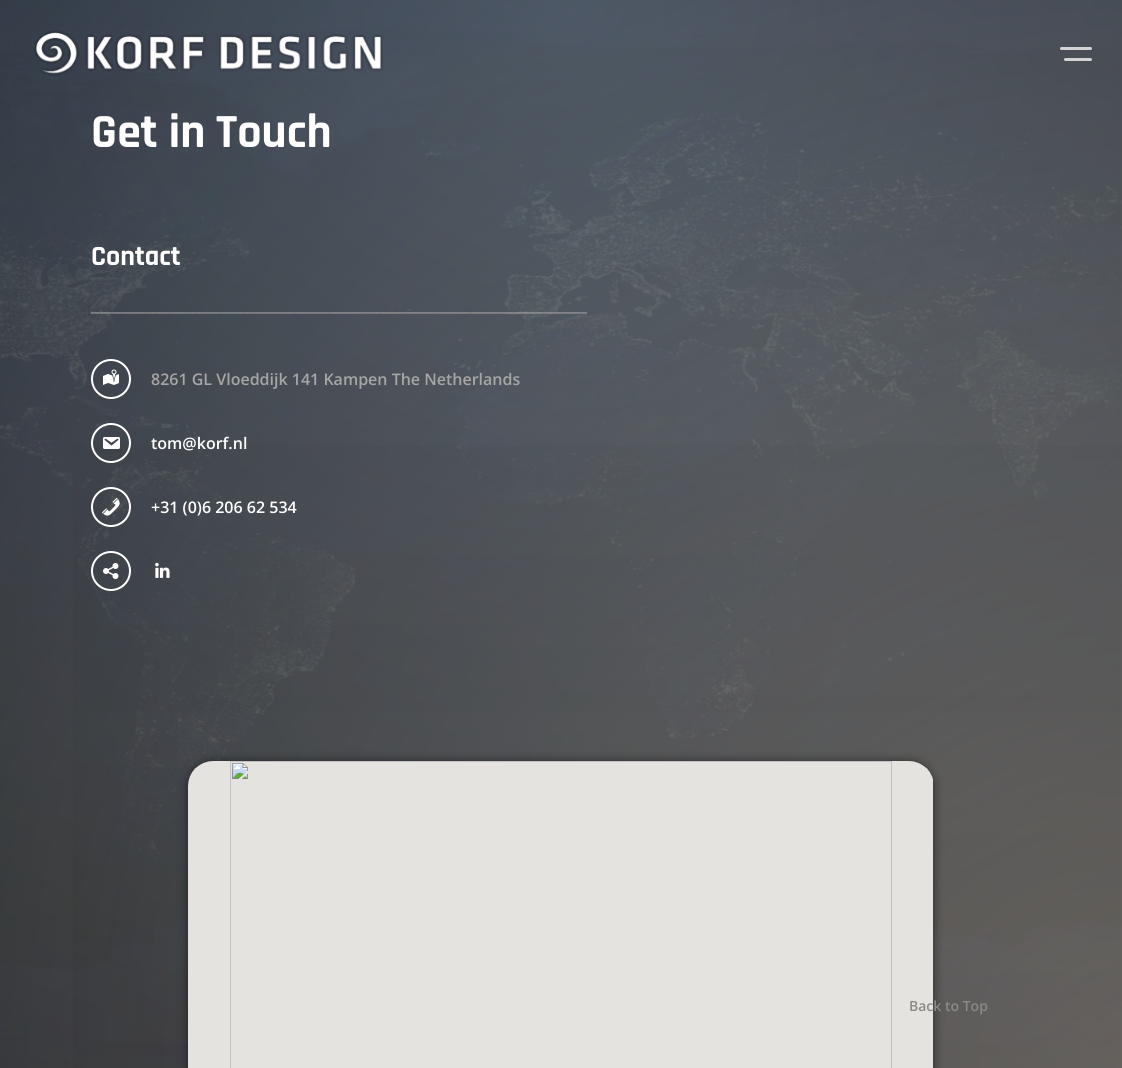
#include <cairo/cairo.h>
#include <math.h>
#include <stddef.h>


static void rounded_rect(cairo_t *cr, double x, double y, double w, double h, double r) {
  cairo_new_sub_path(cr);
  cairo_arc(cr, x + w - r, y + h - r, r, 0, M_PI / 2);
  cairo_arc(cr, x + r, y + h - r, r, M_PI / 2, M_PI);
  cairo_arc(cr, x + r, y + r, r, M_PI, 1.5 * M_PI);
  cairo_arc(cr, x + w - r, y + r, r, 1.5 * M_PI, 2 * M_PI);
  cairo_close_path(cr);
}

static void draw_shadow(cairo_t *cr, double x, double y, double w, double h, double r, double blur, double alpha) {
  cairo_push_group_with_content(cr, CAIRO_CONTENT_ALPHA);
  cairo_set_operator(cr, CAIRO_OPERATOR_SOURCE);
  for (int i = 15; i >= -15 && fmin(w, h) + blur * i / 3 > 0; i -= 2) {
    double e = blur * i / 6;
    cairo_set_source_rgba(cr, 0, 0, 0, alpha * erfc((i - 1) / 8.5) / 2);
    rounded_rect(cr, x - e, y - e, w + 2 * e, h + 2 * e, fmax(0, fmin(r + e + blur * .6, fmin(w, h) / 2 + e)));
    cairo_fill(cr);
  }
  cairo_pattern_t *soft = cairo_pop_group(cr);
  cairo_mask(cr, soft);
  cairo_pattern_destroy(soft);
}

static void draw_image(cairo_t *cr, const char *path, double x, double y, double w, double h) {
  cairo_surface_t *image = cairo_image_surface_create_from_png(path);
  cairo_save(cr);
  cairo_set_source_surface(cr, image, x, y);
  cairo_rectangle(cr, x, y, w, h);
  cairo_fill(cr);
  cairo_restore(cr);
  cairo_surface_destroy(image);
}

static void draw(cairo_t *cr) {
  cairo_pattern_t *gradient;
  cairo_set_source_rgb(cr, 1, 1, 1);
  cairo_paint(cr);
  gradient = cairo_pattern_create_radial(561, 0, 0, 561, 0, 1549);
  cairo_pattern_add_color_stop_rgba(gradient, 0, 67 / 255.0, 81 / 255.0, 96 / 255.0, 1);
  cairo_pattern_add_color_stop_rgba(gradient, 1, 30 / 255.0, 30 / 255.0, 30 / 255.0, 1);
  cairo_set_source(cr, gradient);
  cairo_pattern_destroy(gradient);
  cairo_rectangle(cr, 0, 0, 1122, 1068);
  cairo_fill(cr);
  gradient = cairo_pattern_create_radial(1122, 1068, 0, 1122, 1068, 1549);
  cairo_pattern_add_color_stop_rgba(gradient, 0, 1, 235 / 255.0, 211 / 255.0, 0.34);
  cairo_pattern_add_color_stop_rgba(gradient, 1, 1, 235 / 255.0, 211 / 255.0, 0);
  cairo_set_source(cr, gradient);
  cairo_pattern_destroy(gradient);
  cairo_rectangle(cr, 0, 0, 1122, 1068);
  cairo_fill(cr);
  draw_image(cr, "images/1.png", 0, 0, 1122, 1068);
  gradient = cairo_pattern_create_linear(561, 1068, 561, 0);
  cairo_pattern_add_color_stop_rgba(gradient, 0, 30 / 255.0, 30 / 255.0, 30 / 255.0, 0.07);
  cairo_pattern_add_color_stop_rgba(gradient, 0.5, 30 / 255.0, 30 / 255.0, 30 / 255.0, 0.04);
  cairo_pattern_add_color_stop_rgba(gradient, 1, 30 / 255.0, 30 / 255.0, 30 / 255.0, 0);
  cairo_set_source(cr, gradient);
  cairo_pattern_destroy(gradient);
  cairo_rectangle(cr, 73, 445, 1049, 623);
  cairo_fill(cr);
  draw_image(cr, "images/2.png", 34, 30, 349, 46);
  cairo_set_source_rgba(cr, 1, 1, 1, 0.75);
  rounded_rect(cr, 1060, 47, 32, 3, 1.5);
  cairo_fill(cr);
  cairo_set_source_rgb(cr, 210 / 255.0, 211 / 255.0, 213 / 255.0);
  rounded_rect(cr, 1064, 58, 28, 3, 1.5);
  cairo_fill(cr);
  cairo_arc(cr, 111, 379, 19, 0, 2 * M_PI);
  cairo_set_source_rgb(cr, 1, 1, 1);
  cairo_stroke(cr);
  draw_image(cr, "images/3.png", 103, 369, 16, 16);
  cairo_arc(cr, 111, 443, 19, 0, 2 * M_PI);
  cairo_stroke(cr);
  draw_image(cr, "images/4.png", 103, 437, 17, 12);
  cairo_arc(cr, 111, 507, 19, 0, 2 * M_PI);
  cairo_stroke(cr);
  draw_image(cr, "images/5.png", 102, 497, 18, 19);
  cairo_arc(cr, 111, 571, 19, 0, 2 * M_PI);
  cairo_stroke(cr);
  draw_image(cr, "images/6.png", 103, 563, 16, 16);
  draw_image(cr, "images/7.png", 155, 562, 15, 16);
  cairo_set_source_rgb(cr, 0, 0, 0);
  draw_shadow(cr, 188, 761, 746, 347, 25, 5, 0.5);
  draw_image(cr, "images/8.png", 188, 761, 745, 307);
  cairo_select_font_face(cr, "Rajdhani", CAIRO_FONT_SLANT_NORMAL, CAIRO_FONT_WEIGHT_BOLD);
  cairo_set_font_size(cr, 48);
  cairo_set_source_rgb(cr, 1, 1, 1);
  cairo_move_to(cr, 91, 147);
  cairo_show_text(cr, "Get in Touch");
  cairo_set_font_size(cr, 28);
  cairo_move_to(cr, 91, 265);
  cairo_show_text(cr, "Contact");
  cairo_select_font_face(cr, "Open Sans SemiBold", CAIRO_FONT_SLANT_NORMAL, CAIRO_FONT_WEIGHT_NORMAL);
  cairo_set_font_size(cr, 16);
  cairo_set_source_rgb(cr, 166 / 255.0, 166 / 255.0, 166 / 255.0);
  cairo_move_to(cr, 91, 311);
  cairo_show_text(cr, "_________________________________________________________________________");
  cairo_move_to(cr, 151, 385);
  cairo_show_text(cr, "8261 GL Vloeddijk 141 Kampen The Netherlands");
  cairo_set_source_rgb(cr, 1, 1, 1);
  cairo_move_to(cr, 151, 449);
  cairo_show_text(cr, "tom@korf.nl");
  cairo_move_to(cr, 151, 513);
  cairo_show_text(cr, "+31 (0)6 206 62 534");
  cairo_set_font_size(cr, 14);
  cairo_set_source_rgb(cr, 139 / 255.0, 137 / 255.0, 135 / 255.0);
  cairo_move_to(cr, 909, 1011);
  cairo_show_text(cr, "Back to Top");
}

int main(void) {
  cairo_surface_t *surface = cairo_image_surface_create(CAIRO_FORMAT_RGB24, 1122, 1068);
  cairo_t *cr = cairo_create(surface);
  cairo_font_options_t *options = cairo_font_options_create();
  cairo_font_options_set_hint_metrics(options, CAIRO_HINT_METRICS_OFF);
  cairo_font_options_set_hint_style(options, CAIRO_HINT_STYLE_NONE);
  cairo_set_font_options(cr, options);
  cairo_set_miter_limit(cr, 4);
  draw(cr);
  cairo_surface_write_to_png(surface, "out.png");
  cairo_font_options_destroy(options);
  cairo_destroy(cr);
  cairo_surface_destroy(surface);
  return 0;
}
